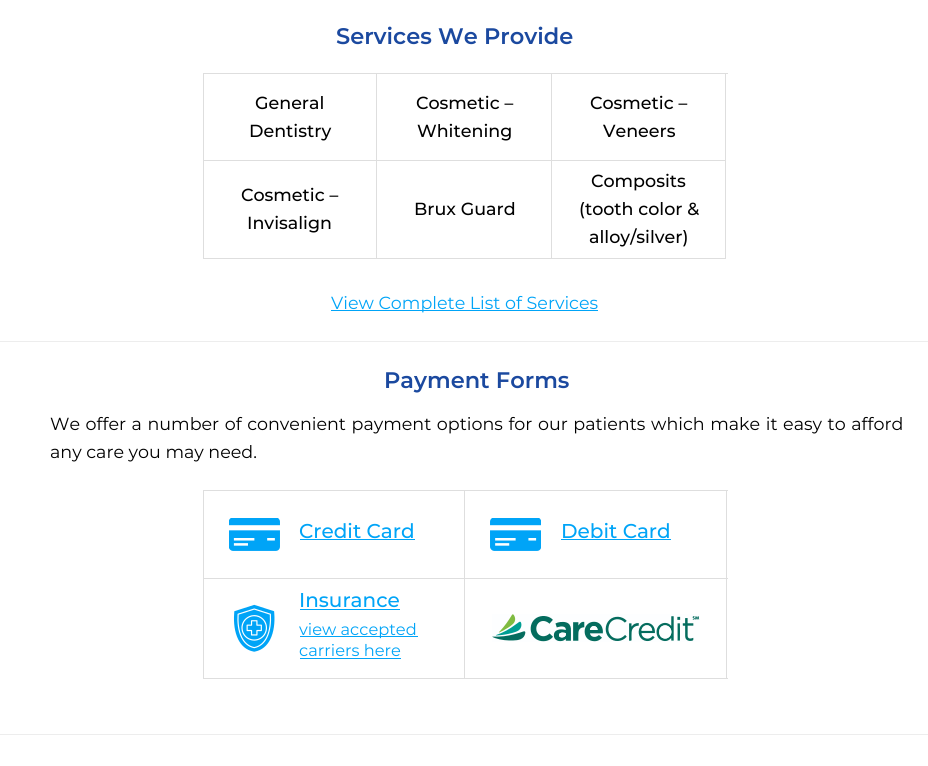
#include <cairo/cairo.h>
#include <math.h>
#include <stddef.h>


static void draw_spaced(cairo_t *cr, double x, double y, const char *s, double letter, double word) {
  cairo_move_to(cr, x, y);
  while (*s) {
    char ch[5] = {0};
    int n = 0;
    do ch[n++] = *s++; while ((*s & 0xC0) == 0x80);
    cairo_show_text(cr, ch);
    cairo_rel_move_to(cr, letter + word * (*ch == ' '), 0);
  }
}

static void draw_image(cairo_t *cr, const char *path, double x, double y, double w, double h) {
  cairo_surface_t *image = cairo_image_surface_create_from_png(path);
  cairo_save(cr);
  cairo_set_source_surface(cr, image, x, y);
  cairo_rectangle(cr, x, y, w, h);
  cairo_fill(cr);
  cairo_restore(cr);
  cairo_surface_destroy(image);
}

static void draw(cairo_t *cr) {
  cairo_set_source_rgb(cr, 1, 1, 1);
  cairo_paint(cr);
  cairo_set_source_rgb(cr, 237 / 255.0, 237 / 255.0, 237 / 255.0);
  cairo_rectangle(cr, 0, 341, 928, 1);
  cairo_fill(cr);
  cairo_set_source_rgb(cr, 222 / 255.0, 222 / 255.0, 222 / 255.0);
  cairo_rectangle(cr, 203, 73, 525, 1);
  cairo_fill(cr);
  cairo_rectangle(cr, 203, 73, 1, 186);
  cairo_fill(cr);
  cairo_rectangle(cr, 376, 74, 1, 185);
  cairo_fill(cr);
  cairo_rectangle(cr, 204, 160, 174, 1);
  cairo_fill(cr);
  cairo_rectangle(cr, 551, 74, 1, 185);
  cairo_fill(cr);
  cairo_rectangle(cr, 378, 160, 175, 1);
  cairo_fill(cr);
  cairo_rectangle(cr, 725, 74, 1, 185);
  cairo_fill(cr);
  cairo_rectangle(cr, 553, 160, 173, 1);
  cairo_fill(cr);
  cairo_rectangle(cr, 204, 258, 522, 1);
  cairo_fill(cr);
  cairo_set_source_rgb(cr, 0, 164 / 255.0, 247 / 255.0);
  cairo_rectangle(cr, 331, 310, 267, 1);
  cairo_fill(cr);
  cairo_set_source_rgb(cr, 237 / 255.0, 237 / 255.0, 237 / 255.0);
  cairo_rectangle(cr, 0, 734, 928, 1);
  cairo_fill(cr);
  cairo_set_source_rgb(cr, 222 / 255.0, 222 / 255.0, 222 / 255.0);
  cairo_rectangle(cr, 203, 490, 525, 1);
  cairo_fill(cr);
  cairo_rectangle(cr, 203, 490, 1, 189);
  cairo_fill(cr);
  cairo_rectangle(cr, 464, 491, 1, 188);
  cairo_fill(cr);
  cairo_rectangle(cr, 204, 578, 261, 1);
  cairo_fill(cr);
  draw_image(cr, "images/1.png", 229, 518, 51, 33);
  cairo_set_source_rgb(cr, 0, 164 / 255.0, 247 / 255.0);
  cairo_rectangle(cr, 300, 539, 115, 1);
  cairo_fill(cr);
  cairo_set_source_rgb(cr, 222 / 255.0, 222 / 255.0, 222 / 255.0);
  cairo_rectangle(cr, 726, 491, 1, 188);
  cairo_fill(cr);
  cairo_rectangle(cr, 465, 578, 263, 1);
  cairo_fill(cr);
  draw_image(cr, "images/2.png", 490, 518, 51, 33);
  cairo_set_source_rgb(cr, 0, 164 / 255.0, 247 / 255.0);
  cairo_rectangle(cr, 561, 539, 110, 1);
  cairo_fill(cr);
  cairo_set_source_rgb(cr, 222 / 255.0, 222 / 255.0, 222 / 255.0);
  cairo_rectangle(cr, 204, 678, 524, 1);
  cairo_fill(cr);
  draw_image(cr, "images/3.png", 233, 604, 42, 48);
  cairo_set_source_rgb(cr, 0, 164 / 255.0, 247 / 255.0);
  cairo_rectangle(cr, 300, 609, 100, 1);
  cairo_fill(cr);
  cairo_rectangle(cr, 300, 636, 118, 1);
  cairo_fill(cr);
  cairo_rectangle(cr, 300, 658, 101, 1);
  cairo_fill(cr);
  draw_image(cr, "images/4.png", 492, 614, 208, 28);
  cairo_select_font_face(cr, "Montserrat SemiBold", CAIRO_FONT_SLANT_NORMAL, CAIRO_FONT_WEIGHT_NORMAL);
  cairo_set_font_size(cr, 22.5);
  cairo_set_source_rgb(cr, 27 / 255.0, 73 / 255.0, 159 / 255.0);
  cairo_move_to(cr, 336, 44);
  cairo_show_text(cr, "Services We Provide");
  cairo_select_font_face(cr, "Montserrat Medium", CAIRO_FONT_SLANT_NORMAL, CAIRO_FONT_WEIGHT_NORMAL);
  cairo_set_font_size(cr, 17.5);
  cairo_set_source_rgb(cr, 0, 0, 0);
  cairo_move_to(cr, 255, 109);
  cairo_show_text(cr, "General");
  cairo_move_to(cr, 249, 137);
  cairo_show_text(cr, "Dentistry");
  cairo_move_to(cr, 416, 109);
  cairo_show_text(cr, "Cosmetic –");
  cairo_move_to(cr, 417, 137);
  cairo_show_text(cr, "Whitening");
  cairo_move_to(cr, 590, 109);
  cairo_show_text(cr, "Cosmetic –");
  cairo_move_to(cr, 603, 137);
  cairo_show_text(cr, "Veneers");
  cairo_move_to(cr, 241, 201);
  cairo_show_text(cr, "Cosmetic –");
  cairo_move_to(cr, 247, 229);
  cairo_show_text(cr, "Invisalign");
  cairo_move_to(cr, 414, 215);
  cairo_show_text(cr, "Brux Guard");
  cairo_move_to(cr, 591, 187);
  cairo_show_text(cr, "Composits");
  cairo_move_to(cr, 579, 215);
  cairo_show_text(cr, "(tooth color &");
  cairo_move_to(cr, 589, 243);
  cairo_show_text(cr, "alloy/silver)");
  cairo_select_font_face(cr, "Montserrat", CAIRO_FONT_SLANT_NORMAL, CAIRO_FONT_WEIGHT_NORMAL);
  cairo_set_source_rgb(cr, 0, 164 / 255.0, 247 / 255.0);
  cairo_move_to(cr, 331, 309);
  cairo_show_text(cr, "View Complete List of Services");
  cairo_select_font_face(cr, "Montserrat SemiBold", CAIRO_FONT_SLANT_NORMAL, CAIRO_FONT_WEIGHT_NORMAL);
  cairo_set_font_size(cr, 22.5);
  cairo_set_source_rgb(cr, 27 / 255.0, 73 / 255.0, 159 / 255.0);
  cairo_move_to(cr, 384, 388);
  cairo_show_text(cr, "Payment Forms");
  cairo_select_font_face(cr, "Montserrat", CAIRO_FONT_SLANT_NORMAL, CAIRO_FONT_WEIGHT_NORMAL);
  cairo_set_font_size(cr, 17.5);
  cairo_set_source_rgb(cr, 0, 0, 0);
  draw_spaced(cr, 50, 430, "We offer a number of convenient payment options for our patients", 0, 1);
  draw_spaced(cr, 651, 430, "which make it easy to afford", 0, 1);
  cairo_move_to(cr, 50, 458);
  cairo_show_text(cr, "any care you may need.");
  cairo_select_font_face(cr, "Montserrat Medium", CAIRO_FONT_SLANT_NORMAL, CAIRO_FONT_WEIGHT_NORMAL);
  cairo_set_font_size(cr, 20);
  cairo_set_source_rgb(cr, 0, 164 / 255.0, 247 / 255.0);
  cairo_move_to(cr, 299, 538);
  cairo_show_text(cr, "Credit Card");
  cairo_move_to(cr, 561, 538);
  cairo_show_text(cr, "Debit Card");
  cairo_move_to(cr, 299, 607);
  cairo_show_text(cr, "Insurance");
  cairo_select_font_face(cr, "Montserrat", CAIRO_FONT_SLANT_NORMAL, CAIRO_FONT_WEIGHT_NORMAL);
  cairo_set_font_size(cr, 16.25);
  cairo_move_to(cr, 299, 635);
  cairo_show_text(cr, "view accepted");
  cairo_move_to(cr, 299, 656);
  cairo_show_text(cr, "carriers here");
}

int main(void) {
  cairo_surface_t *surface = cairo_image_surface_create(CAIRO_FORMAT_RGB24, 928, 766);
  cairo_t *cr = cairo_create(surface);
  cairo_font_options_t *options = cairo_font_options_create();
  cairo_font_options_set_hint_metrics(options, CAIRO_HINT_METRICS_OFF);
  cairo_font_options_set_hint_style(options, CAIRO_HINT_STYLE_NONE);
  cairo_set_font_options(cr, options);
  cairo_set_miter_limit(cr, 4);
  draw(cr);
  cairo_surface_write_to_png(surface, "out.png");
  cairo_font_options_destroy(options);
  cairo_destroy(cr);
  cairo_surface_destroy(surface);
  return 0;
}
